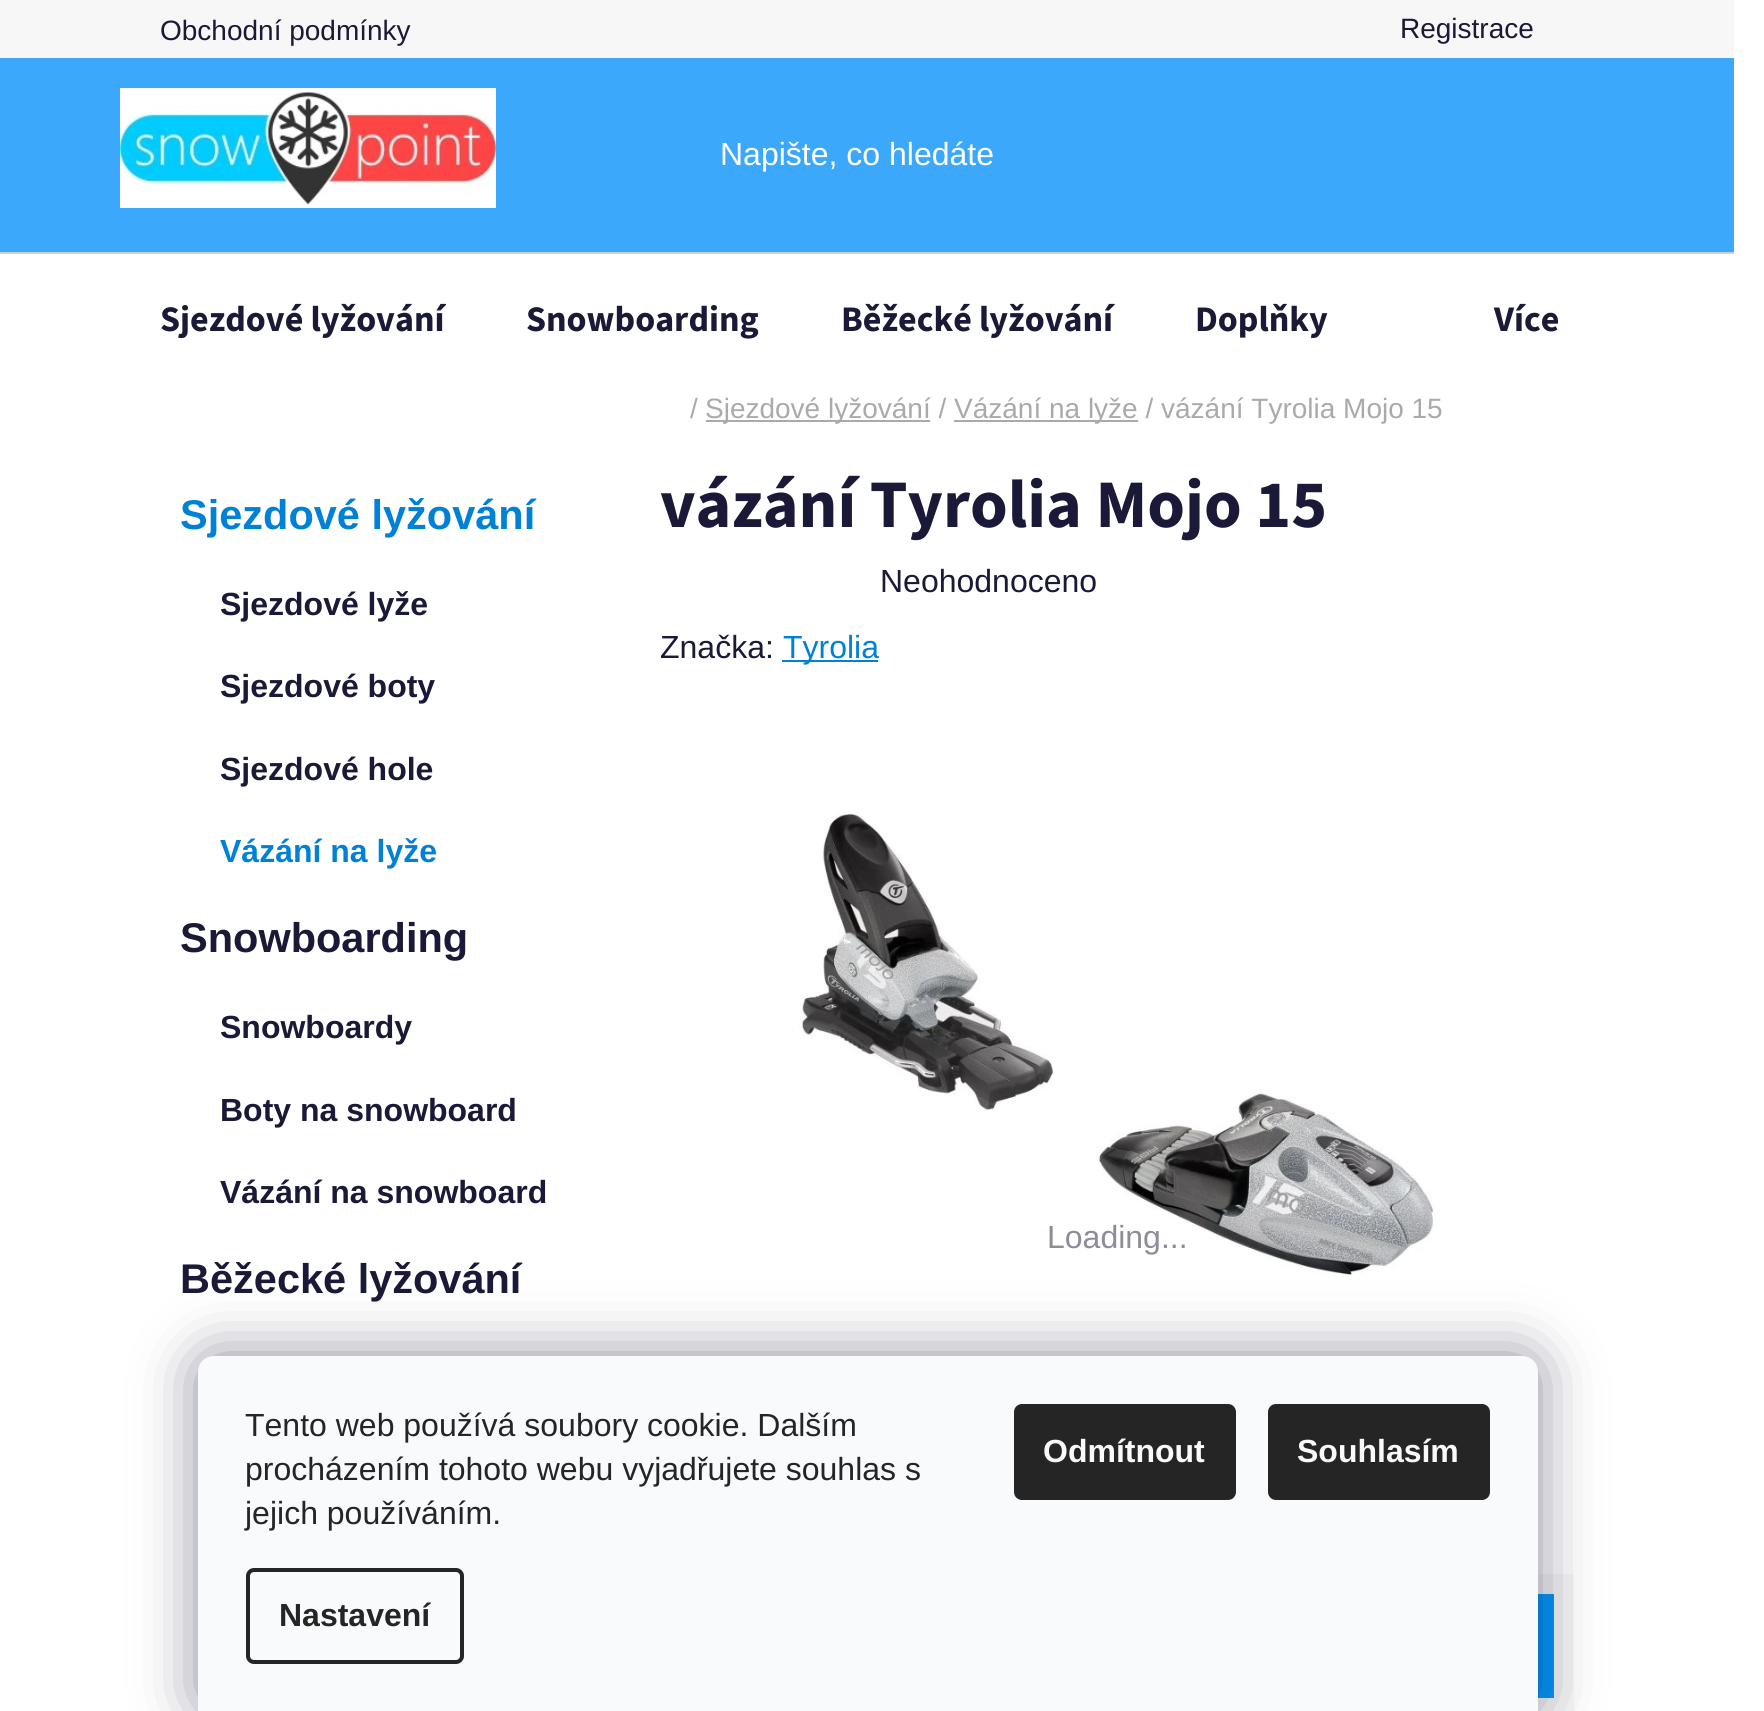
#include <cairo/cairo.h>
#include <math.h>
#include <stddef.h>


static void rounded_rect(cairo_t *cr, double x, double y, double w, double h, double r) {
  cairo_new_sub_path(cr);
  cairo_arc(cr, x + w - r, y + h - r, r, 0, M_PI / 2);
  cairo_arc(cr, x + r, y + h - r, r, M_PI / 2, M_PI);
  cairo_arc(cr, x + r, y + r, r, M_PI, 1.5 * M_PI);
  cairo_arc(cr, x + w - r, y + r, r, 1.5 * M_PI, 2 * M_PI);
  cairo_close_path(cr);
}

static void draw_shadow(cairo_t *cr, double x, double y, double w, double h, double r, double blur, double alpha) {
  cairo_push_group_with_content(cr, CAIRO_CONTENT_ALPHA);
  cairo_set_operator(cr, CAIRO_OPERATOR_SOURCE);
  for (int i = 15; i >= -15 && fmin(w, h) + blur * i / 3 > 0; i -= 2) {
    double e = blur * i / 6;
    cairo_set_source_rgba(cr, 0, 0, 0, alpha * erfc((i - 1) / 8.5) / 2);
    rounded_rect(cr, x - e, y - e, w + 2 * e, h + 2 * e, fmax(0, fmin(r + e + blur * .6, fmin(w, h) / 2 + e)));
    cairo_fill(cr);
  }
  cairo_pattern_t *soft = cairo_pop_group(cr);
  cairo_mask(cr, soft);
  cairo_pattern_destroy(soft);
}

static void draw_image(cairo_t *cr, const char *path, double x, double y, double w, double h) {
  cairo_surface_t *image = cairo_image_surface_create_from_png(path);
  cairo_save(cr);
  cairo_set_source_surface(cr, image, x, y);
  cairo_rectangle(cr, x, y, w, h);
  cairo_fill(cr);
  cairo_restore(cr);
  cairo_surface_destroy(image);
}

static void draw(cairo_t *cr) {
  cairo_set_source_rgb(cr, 1, 1, 1);
  cairo_paint(cr);
  cairo_set_source_rgb(cr, 247 / 255.0, 247 / 255.0, 247 / 255.0);
  cairo_rectangle(cr, 0, 0, 1734, 58);
  cairo_fill(cr);
  cairo_set_source_rgb(cr, 59 / 255.0, 168 / 255.0, 252 / 255.0);
  cairo_rectangle(cr, 0, 58, 1734, 194);
  cairo_fill(cr);
  draw_image(cr, "images/1.png", 120, 88, 376, 120);
  cairo_set_source_rgb(cr, 207 / 255.0, 207 / 255.0, 207 / 255.0);
  cairo_rectangle(cr, 0, 252, 1734, 2);
  cairo_fill(cr);
  cairo_set_source_rgb(cr, 170 / 255.0, 170 / 255.0, 170 / 255.0);
  cairo_rectangle(cr, 706, 420, 224, 2);
  cairo_fill(cr);
  cairo_rectangle(cr, 954, 420, 184, 2);
  cairo_fill(cr);
  cairo_set_source_rgb(cr, 0, 129 / 255.0, 214 / 255.0);
  cairo_rectangle(cr, 782, 660, 96, 2);
  cairo_fill(cr);
  draw_image(cr, "images/2.png", 799, 811, 636, 464);
  cairo_set_source_rgb(cr, 247 / 255.0, 247 / 255.0, 247 / 255.0);
  cairo_rectangle(cr, 1538, 1574, 36, 137);
  cairo_fill(cr);
  cairo_set_source_rgb(cr, 0, 153 / 255.0, 1);
  cairo_rectangle(cr, 1538, 1594, 16, 104);
  cairo_fill(cr);
  cairo_set_source_rgb(cr, 27 / 255.0, 25 / 255.0, 57 / 255.0);
  draw_shadow(cr, 198, 1356, 1340, 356, 16, 30, 0.5);
  cairo_set_source_rgb(cr, 248 / 255.0, 250 / 255.0, 251 / 255.0);
  cairo_new_path(cr);
  cairo_move_to(cr, 214, 1356);
  cairo_line_to(cr, 1522, 1356);
  cairo_curve_to(cr, 1531, 1356, 1538, 1363, 1538, 1372);
  cairo_line_to(cr, 1538, 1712);
  cairo_line_to(cr, 198, 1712);
  cairo_line_to(cr, 198, 1372);
  cairo_curve_to(cr, 198, 1363, 205, 1356, 214, 1356);
  cairo_close_path(cr);
  cairo_fill(cr);
  rounded_rect(cr, 248, 1570, 214, 92, 6);
  cairo_set_source_rgb(cr, 37 / 255.0, 37 / 255.0, 37 / 255.0);
  cairo_set_line_width(cr, 4);
  cairo_stroke(cr);
  rounded_rect(cr, 1014, 1404, 222, 96, 8);
  cairo_fill(cr);
  rounded_rect(cr, 1268, 1404, 222, 96, 8);
  cairo_fill(cr);
  cairo_select_font_face(cr, "Liberation Sans", CAIRO_FONT_SLANT_NORMAL, CAIRO_FONT_WEIGHT_NORMAL);
  cairo_set_font_size(cr, 28);
  cairo_set_source_rgb(cr, 26 / 255.0, 25 / 255.0, 55 / 255.0);
  cairo_move_to(cr, 160, 40);
  cairo_show_text(cr, "Obchodní podmínky");
  cairo_move_to(cr, 1400, 38);
  cairo_show_text(cr, "Registrace");
  cairo_set_font_size(cr, 32);
  cairo_set_source_rgb(cr, 1, 1, 1);
  cairo_move_to(cr, 720, 165);
  cairo_show_text(cr, "Napište, co hledáte");
  cairo_select_font_face(cr, "Source Sans 3", CAIRO_FONT_SLANT_NORMAL, CAIRO_FONT_WEIGHT_BOLD);
  cairo_set_font_size(cr, 36);
  cairo_set_source_rgb(cr, 26 / 255.0, 25 / 255.0, 55 / 255.0);
  cairo_move_to(cr, 160, 331);
  cairo_show_text(cr, "Sjezdové lyžování");
  cairo_move_to(cr, 526, 331);
  cairo_show_text(cr, "Snowboarding");
  cairo_move_to(cr, 841, 331);
  cairo_show_text(cr, "Běžecké lyžování");
  cairo_move_to(cr, 1195, 331);
  cairo_show_text(cr, "Doplňky");
  cairo_move_to(cr, 1494, 331);
  cairo_show_text(cr, "Více");
  cairo_select_font_face(cr, "Liberation Sans", CAIRO_FONT_SLANT_NORMAL, CAIRO_FONT_WEIGHT_NORMAL);
  cairo_set_font_size(cr, 28);
  cairo_set_source_rgb(cr, 170 / 255.0, 170 / 255.0, 170 / 255.0);
  cairo_move_to(cr, 690, 418);
  cairo_show_text(cr, "/");
  cairo_move_to(cr, 705, 418);
  cairo_show_text(cr, "Sjezdové lyžování /");
  cairo_move_to(cr, 954, 418);
  cairo_show_text(cr, "Vázání na lyže / vázání Tyrolia Mojo 15");
  cairo_select_font_face(cr, "Liberation Sans", CAIRO_FONT_SLANT_NORMAL, CAIRO_FONT_WEIGHT_BOLD);
  cairo_set_font_size(cr, 41.5);
  cairo_set_source_rgb(cr, 0, 129 / 255.0, 214 / 255.0);
  cairo_move_to(cr, 180, 529);
  cairo_show_text(cr, "Sjezdové lyžování");
  cairo_set_font_size(cr, 32);
  cairo_set_source_rgb(cr, 26 / 255.0, 25 / 255.0, 55 / 255.0);
  cairo_move_to(cr, 220, 615);
  cairo_show_text(cr, "Sjezdové lyže");
  cairo_move_to(cr, 220, 697);
  cairo_show_text(cr, "Sjezdové boty");
  cairo_move_to(cr, 220, 780);
  cairo_show_text(cr, "Sjezdové hole");
  cairo_set_source_rgb(cr, 0, 129 / 255.0, 214 / 255.0);
  cairo_move_to(cr, 220, 862);
  cairo_show_text(cr, "Vázání na lyže");
  cairo_set_font_size(cr, 41.5);
  cairo_set_source_rgb(cr, 26 / 255.0, 25 / 255.0, 55 / 255.0);
  cairo_move_to(cr, 180, 952);
  cairo_show_text(cr, "Snowboarding");
  cairo_set_font_size(cr, 32);
  cairo_move_to(cr, 220, 1038);
  cairo_show_text(cr, "Snowboardy");
  cairo_move_to(cr, 220, 1121);
  cairo_show_text(cr, "Boty na snowboard");
  cairo_move_to(cr, 220, 1203);
  cairo_show_text(cr, "Vázání na snowboard");
  cairo_set_font_size(cr, 41.5);
  cairo_move_to(cr, 180, 1293);
  cairo_show_text(cr, "Běžecké lyžování");
  cairo_select_font_face(cr, "Source Sans 3", CAIRO_FONT_SLANT_NORMAL, CAIRO_FONT_WEIGHT_BOLD);
  cairo_set_font_size(cr, 68);
  cairo_move_to(cr, 660, 527);
  cairo_show_text(cr, "vázání Tyrolia Mojo 15");
  cairo_select_font_face(cr, "Liberation Sans", CAIRO_FONT_SLANT_NORMAL, CAIRO_FONT_WEIGHT_NORMAL);
  cairo_set_font_size(cr, 32);
  cairo_move_to(cr, 880, 592);
  cairo_show_text(cr, "Neohodnoceno");
  cairo_move_to(cr, 660, 658);
  cairo_show_text(cr, "Značka:");
  cairo_set_source_rgb(cr, 0, 129 / 255.0, 214 / 255.0);
  cairo_move_to(cr, 783, 658);
  cairo_show_text(cr, "Tyrolia");
  cairo_set_source_rgb(cr, 141 / 255.0, 140 / 255.0, 155 / 255.0);
  cairo_move_to(cr, 1047, 1248);
  cairo_show_text(cr, "Loading...");
  cairo_set_source_rgb(cr, 37 / 255.0, 37 / 255.0, 37 / 255.0);
  cairo_move_to(cr, 245, 1436);
  cairo_show_text(cr, "Tento web používá soubory cookie. Dalším");
  cairo_move_to(cr, 245, 1480);
  cairo_show_text(cr, "procházením tohoto webu vyjadřujete souhlas s");
  cairo_move_to(cr, 245, 1524);
  cairo_show_text(cr, "jejich používáním.");
  cairo_select_font_face(cr, "Liberation Sans", CAIRO_FONT_SLANT_NORMAL, CAIRO_FONT_WEIGHT_BOLD);
  cairo_move_to(cr, 279, 1626);
  cairo_show_text(cr, "Nastavení");
  cairo_set_source_rgb(cr, 248 / 255.0, 250 / 255.0, 251 / 255.0);
  cairo_move_to(cr, 1043, 1462);
  cairo_show_text(cr, "Odmítnout");
  cairo_move_to(cr, 1297, 1462);
  cairo_show_text(cr, "Souhlasím");
}

int main(void) {
  cairo_surface_t *surface = cairo_image_surface_create(CAIRO_FORMAT_RGB24, 1764, 1711);
  cairo_t *cr = cairo_create(surface);
  cairo_font_options_t *options = cairo_font_options_create();
  cairo_font_options_set_hint_metrics(options, CAIRO_HINT_METRICS_OFF);
  cairo_font_options_set_hint_style(options, CAIRO_HINT_STYLE_NONE);
  cairo_set_font_options(cr, options);
  cairo_set_miter_limit(cr, 4);
  draw(cr);
  cairo_surface_write_to_png(surface, "out.png");
  cairo_font_options_destroy(options);
  cairo_destroy(cr);
  cairo_surface_destroy(surface);
  return 0;
}
